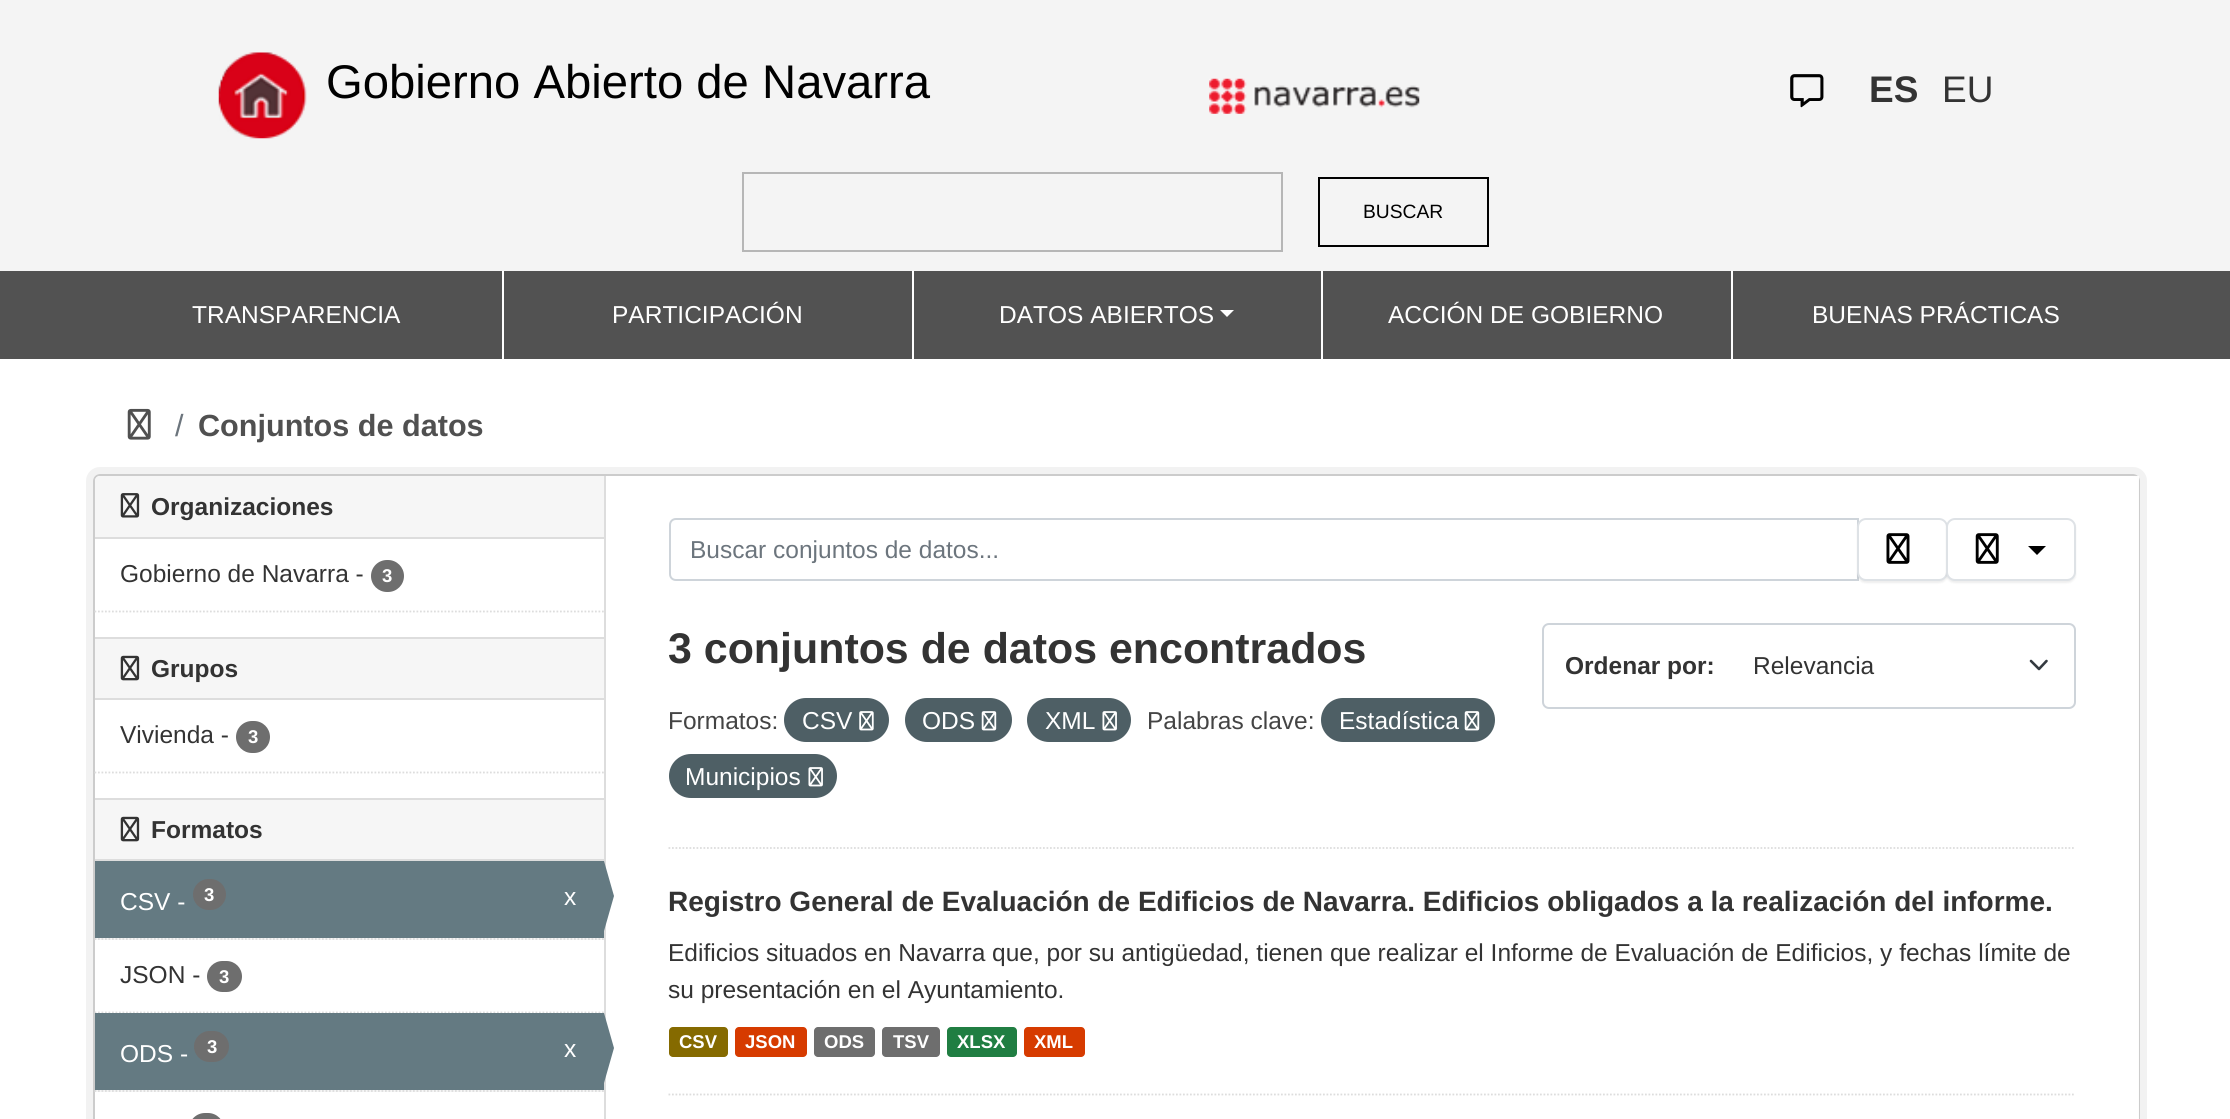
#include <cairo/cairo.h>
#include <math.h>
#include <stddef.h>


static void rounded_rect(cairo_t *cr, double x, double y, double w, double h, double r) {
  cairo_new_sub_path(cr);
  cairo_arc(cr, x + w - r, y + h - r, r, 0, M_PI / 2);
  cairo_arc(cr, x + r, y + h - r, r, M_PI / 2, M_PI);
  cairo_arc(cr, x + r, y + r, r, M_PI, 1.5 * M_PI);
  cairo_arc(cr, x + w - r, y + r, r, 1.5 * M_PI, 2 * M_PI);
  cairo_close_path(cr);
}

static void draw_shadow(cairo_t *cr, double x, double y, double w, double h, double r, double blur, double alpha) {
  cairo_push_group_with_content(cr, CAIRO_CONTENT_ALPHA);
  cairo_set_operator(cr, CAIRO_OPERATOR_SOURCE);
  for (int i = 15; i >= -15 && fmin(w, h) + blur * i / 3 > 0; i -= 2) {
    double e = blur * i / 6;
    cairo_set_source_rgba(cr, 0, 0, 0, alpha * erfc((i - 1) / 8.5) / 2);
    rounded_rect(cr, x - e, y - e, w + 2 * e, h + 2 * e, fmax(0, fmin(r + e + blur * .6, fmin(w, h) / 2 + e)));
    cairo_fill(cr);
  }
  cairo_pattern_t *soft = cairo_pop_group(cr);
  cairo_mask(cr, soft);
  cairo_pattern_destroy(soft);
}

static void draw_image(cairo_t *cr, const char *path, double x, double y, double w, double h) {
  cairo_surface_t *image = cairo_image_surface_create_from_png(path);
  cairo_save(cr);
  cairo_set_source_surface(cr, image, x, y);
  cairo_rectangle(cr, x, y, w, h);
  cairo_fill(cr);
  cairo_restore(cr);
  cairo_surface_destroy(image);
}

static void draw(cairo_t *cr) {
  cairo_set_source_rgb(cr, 244 / 255.0, 244 / 255.0, 244 / 255.0);
  cairo_paint(cr);
  draw_image(cr, "images/1.png", 218, 52, 89, 87);
  draw_image(cr, "images/2.png", 1209, 78, 211, 36);
  draw_image(cr, "images/3.png", 1790, 74, 34, 34);
  cairo_rectangle(cr, 743, 173, 539, 78);
  cairo_set_source_rgb(cr, 182 / 255.0, 182 / 255.0, 182 / 255.0);
  cairo_stroke(cr);
  cairo_rectangle(cr, 1319, 178, 169, 68);
  cairo_set_source_rgb(cr, 0, 0, 0);
  cairo_stroke(cr);
  cairo_set_source_rgb(cr, 82 / 255.0, 82 / 255.0, 82 / 255.0);
  cairo_rectangle(cr, 0, 271, 2230, 88);
  cairo_fill(cr);
  cairo_set_source_rgb(cr, 1, 1, 1);
  cairo_rectangle(cr, 502, 271, 2, 88);
  cairo_fill(cr);
  cairo_rectangle(cr, 912, 271, 2, 88);
  cairo_fill(cr);
  cairo_new_path(cr);
  cairo_move_to(cr, 1220, 310);
  cairo_line_to(cr, 1234, 310);
  cairo_line_to(cr, 1227, 317);
  cairo_close_path(cr);
  cairo_fill(cr);
  cairo_rectangle(cr, 1321, 271, 2, 88);
  cairo_fill(cr);
  cairo_rectangle(cr, 1731, 271, 2, 88);
  cairo_fill(cr);
  cairo_rectangle(cr, 0, 359, 2230, 760);
  cairo_fill(cr);
  draw_image(cr, "images/4.png", 127, 408, 24, 32);
  rounded_rect(cr, 89.5, 470.5, 2054, 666, 10.5);
  cairo_set_source_rgb(cr, 242 / 255.0, 242 / 255.0, 242 / 255.0);
  cairo_set_line_width(cr, 7);
  cairo_stroke(cr);
  cairo_set_source_rgb(cr, 1, 1, 1);
  rounded_rect(cr, 94, 475, 2045, 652, 6);
  cairo_fill_preserve(cr);
  cairo_set_source_rgb(cr, 204 / 255.0, 204 / 255.0, 204 / 255.0);
  cairo_set_line_width(cr, 2);
  cairo_stroke(cr);
  cairo_set_source_rgb(cr, 246 / 255.0, 246 / 255.0, 246 / 255.0);
  cairo_new_path(cr);
  cairo_move_to(cr, 100, 476);
  cairo_line_to(cr, 604, 476);
  cairo_line_to(cr, 604, 539);
  cairo_line_to(cr, 95, 539);
  cairo_line_to(cr, 95, 481);
  cairo_curve_to(cr, 95, 478, 97, 476, 100, 476);
  cairo_close_path(cr);
  cairo_fill(cr);
  cairo_set_source_rgb(cr, 221 / 255.0, 221 / 255.0, 221 / 255.0);
  cairo_rectangle(cr, 95, 537, 509, 2);
  cairo_fill(cr);
  draw_image(cr, "images/5.png", 120, 493, 20, 25);
  cairo_set_source_rgb(cr, 110 / 255.0, 110 / 255.0, 110 / 255.0);
  rounded_rect(cr, 371, 560, 33, 32, 16);
  cairo_fill(cr);
  cairo_new_path(cr);
  cairo_move_to(cr, 94.5, 611.5);
  cairo_line_to(cr, 604, 611.5);
  cairo_set_source_rgb(cr, 221 / 255.0, 221 / 255.0, 221 / 255.0);
  cairo_set_line_width(cr, 1.8);
  cairo_set_dash(cr, (double[]){1.75, 1.75}, 2, 0);
  cairo_stroke(cr);
  cairo_set_source_rgb(cr, 246 / 255.0, 246 / 255.0, 246 / 255.0);
  cairo_rectangle(cr, 95, 639, 509, 59);
  cairo_fill(cr);
  cairo_set_source_rgb(cr, 221 / 255.0, 221 / 255.0, 221 / 255.0);
  cairo_rectangle(cr, 95, 637, 509, 2);
  cairo_fill(cr);
  cairo_rectangle(cr, 95, 698, 509, 2);
  cairo_fill(cr);
  draw_image(cr, "images/6.png", 120, 655, 20, 26);
  cairo_set_source_rgb(cr, 110 / 255.0, 110 / 255.0, 110 / 255.0);
  rounded_rect(cr, 236, 721, 34, 32, 16);
  cairo_fill(cr);
  cairo_new_path(cr);
  cairo_move_to(cr, 94.5, 772.5);
  cairo_line_to(cr, 604, 772.5);
  cairo_set_source_rgb(cr, 221 / 255.0, 221 / 255.0, 221 / 255.0);
  cairo_stroke(cr);
  cairo_set_source_rgb(cr, 246 / 255.0, 246 / 255.0, 246 / 255.0);
  cairo_rectangle(cr, 95, 800, 509, 59);
  cairo_fill(cr);
  cairo_set_source_rgb(cr, 221 / 255.0, 221 / 255.0, 221 / 255.0);
  cairo_rectangle(cr, 95, 798, 509, 2);
  cairo_fill(cr);
  cairo_rectangle(cr, 95, 859, 509, 2);
  cairo_fill(cr);
  draw_image(cr, "images/6.png", 120, 816, 20, 26);
  cairo_set_source_rgb(cr, 246 / 255.0, 246 / 255.0, 246 / 255.0);
  cairo_rectangle(cr, 95, 938, 509, 2);
  cairo_fill(cr);
  cairo_new_path(cr);
  cairo_move_to(cr, 94.5, 939);
  cairo_line_to(cr, 604, 939);
  cairo_set_source_rgb(cr, 221 / 255.0, 221 / 255.0, 221 / 255.0);
  cairo_stroke(cr);
  cairo_set_source_rgb(cr, 100 / 255.0, 122 / 255.0, 130 / 255.0);
  cairo_rectangle(cr, 95, 861, 509, 77);
  cairo_fill(cr);
  cairo_set_source_rgb(cr, 110 / 255.0, 110 / 255.0, 110 / 255.0);
  rounded_rect(cr, 193, 879, 33, 31, 15.5);
  cairo_fill(cr);
  cairo_set_source_rgb(cr, 221 / 255.0, 221 / 255.0, 221 / 255.0);
  cairo_rectangle(cr, 604, 476, 2, 643);
  cairo_fill(cr);
  cairo_set_source_rgb(cr, 100 / 255.0, 122 / 255.0, 130 / 255.0);
  cairo_new_path(cr);
  cairo_move_to(cr, 604, 931);
  cairo_line_to(cr, 604, 861);
  cairo_line_to(cr, 614, 896);
  cairo_close_path(cr);
  cairo_fill(cr);
  cairo_new_path(cr);
  cairo_move_to(cr, 94.5, 1012.5);
  cairo_line_to(cr, 604, 1012.5);
  cairo_set_source_rgb(cr, 221 / 255.0, 221 / 255.0, 221 / 255.0);
  cairo_stroke(cr);
  cairo_set_source_rgb(cr, 110 / 255.0, 110 / 255.0, 110 / 255.0);
  rounded_rect(cr, 207, 961, 35, 31, 15.5);
  cairo_fill(cr);
  cairo_set_source_rgb(cr, 246 / 255.0, 246 / 255.0, 246 / 255.0);
  cairo_rectangle(cr, 95, 1090, 509, 2);
  cairo_fill(cr);
  cairo_new_path(cr);
  cairo_move_to(cr, 94.5, 1091);
  cairo_line_to(cr, 604, 1091);
  cairo_set_source_rgb(cr, 221 / 255.0, 221 / 255.0, 221 / 255.0);
  cairo_stroke(cr);
  cairo_set_source_rgb(cr, 100 / 255.0, 122 / 255.0, 130 / 255.0);
  cairo_rectangle(cr, 95, 1013, 509, 77);
  cairo_fill(cr);
  cairo_set_source_rgb(cr, 110 / 255.0, 110 / 255.0, 110 / 255.0);
  rounded_rect(cr, 194, 1031, 35, 31, 15.5);
  cairo_fill(cr);
  cairo_set_source_rgb(cr, 100 / 255.0, 122 / 255.0, 130 / 255.0);
  cairo_new_path(cr);
  cairo_move_to(cr, 604, 1083);
  cairo_line_to(cr, 604, 1013);
  cairo_line_to(cr, 614, 1048);
  cairo_close_path(cr);
  cairo_fill(cr);
  cairo_set_source_rgb(cr, 110 / 255.0, 110 / 255.0, 110 / 255.0);
  rounded_rect(cr, 189, 1113, 35, 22, 16);
  cairo_fill(cr);
  cairo_set_source_rgba(cr, 1, 1, 1, 0.95);
  cairo_rectangle(cr, 2134, 476, 5, 643);
  cairo_fill(cr);
  cairo_new_path(cr);
  cairo_move_to(cr, 668.5, 848);
  cairo_line_to(cr, 2075.5, 848);
  cairo_set_source_rgb(cr, 221 / 255.0, 221 / 255.0, 221 / 255.0);
  cairo_stroke(cr);
  cairo_new_path(cr);
  cairo_move_to(cr, 676, 519);
  cairo_line_to(cr, 1858, 519);
  cairo_line_to(cr, 1858, 580);
  cairo_line_to(cr, 676, 580);
  cairo_curve_to(cr, 672.5, 580, 670, 577.5, 670, 574);
  cairo_line_to(cr, 670, 525);
  cairo_curve_to(cr, 670, 521.5, 672.5, 519, 676, 519);
  cairo_close_path(cr);
  cairo_set_source_rgb(cr, 206 / 255.0, 212 / 255.0, 218 / 255.0);
  cairo_set_line_width(cr, 2);
  cairo_set_dash(cr, NULL, 0, 0);
  cairo_stroke(cr);
  cairo_set_source_rgb(cr, 0, 0, 0);
  draw_shadow(cr, 1857, 520, 91, 63, 9, 1, 0.07);
  cairo_set_source_rgb(cr, 1, 1, 1);
  rounded_rect(cr, 1858, 519, 89, 61, 8);
  cairo_fill_preserve(cr);
  cairo_set_source_rgb(cr, 222 / 255.0, 226 / 255.0, 230 / 255.0);
  cairo_stroke(cr);
  draw_image(cr, "images/7.png", 1886, 533, 24, 31);
  cairo_set_source_rgb(cr, 0, 0, 0);
  draw_shadow(cr, 1946, 520, 130, 63, 9, 1, 0.07);
  cairo_set_source_rgb(cr, 1, 1, 1);
  rounded_rect(cr, 1947, 519, 128, 61, 8);
  cairo_fill_preserve(cr);
  cairo_set_source_rgb(cr, 222 / 255.0, 226 / 255.0, 230 / 255.0);
  cairo_stroke(cr);
  draw_image(cr, "images/8.png", 1975, 533, 24, 31);
  cairo_set_source_rgb(cr, 0, 0, 0);
  cairo_new_path(cr);
  cairo_move_to(cr, 2028, 546);
  cairo_line_to(cr, 2046, 546);
  cairo_line_to(cr, 2037, 555);
  cairo_close_path(cr);
  cairo_fill(cr);
  cairo_new_path(cr);
  cairo_move_to(cr, 2031, 661);
  cairo_line_to(cr, 2039, 669);
  cairo_line_to(cr, 2046.5, 661);
  cairo_set_source_rgb(cr, 52 / 255.0, 58 / 255.0, 64 / 255.0);
  cairo_set_line_width(cr, 2.6);
  cairo_set_line_cap(cr, CAIRO_LINE_CAP_ROUND);
  cairo_set_line_join(cr, CAIRO_LINE_JOIN_ROUND);
  cairo_stroke(cr);
  rounded_rect(cr, 1543, 624, 532, 84, 6);
  cairo_set_source_rgb(cr, 206 / 255.0, 212 / 255.0, 218 / 255.0);
  cairo_set_line_width(cr, 2);
  cairo_set_line_cap(cr, CAIRO_LINE_CAP_BUTT);
  cairo_set_line_join(cr, CAIRO_LINE_JOIN_MITER);
  cairo_stroke(cr);
  cairo_set_source_rgb(cr, 78 / 255.0, 95 / 255.0, 101 / 255.0);
  rounded_rect(cr, 784, 698, 105, 44, 22);
  cairo_fill(cr);
  draw_image(cr, "images/9.png", 859, 711, 15, 20);
  rounded_rect(cr, 905, 698, 107, 44, 22);
  cairo_fill(cr);
  draw_image(cr, "images/10.png", 981, 711, 16, 20);
  rounded_rect(cr, 1027, 698, 104, 44, 22);
  cairo_fill(cr);
  draw_image(cr, "images/11.png", 1102, 711, 15, 20);
  rounded_rect(cr, 1321, 698, 174, 44, 22);
  cairo_fill(cr);
  draw_image(cr, "images/10.png", 1464, 711, 16, 20);
  rounded_rect(cr, 669, 754, 168, 44, 22);
  cairo_fill(cr);
  draw_image(cr, "images/11.png", 808, 767, 15, 20);
  cairo_new_path(cr);
  cairo_move_to(cr, 668.5, 1094.5);
  cairo_line_to(cr, 2075.5, 1094.5);
  cairo_set_source_rgb(cr, 221 / 255.0, 221 / 255.0, 221 / 255.0);
  cairo_set_line_width(cr, 1.8);
  cairo_set_dash(cr, (double[]){1.75, 1.75}, 2, 0);
  cairo_stroke(cr);
  cairo_set_source_rgb(cr, 133 / 255.0, 106 / 255.0, 0);
  rounded_rect(cr, 669, 1027, 59, 30, 4);
  cairo_fill(cr);
  cairo_set_source_rgb(cr, 214 / 255.0, 59 / 255.0, 0);
  rounded_rect(cr, 735, 1027, 72, 30, 4);
  cairo_fill(cr);
  cairo_set_source_rgb(cr, 110 / 255.0, 110 / 255.0, 110 / 255.0);
  rounded_rect(cr, 814, 1027, 61, 30, 4);
  cairo_fill(cr);
  rounded_rect(cr, 882, 1027, 58, 30, 4);
  cairo_fill(cr);
  cairo_set_source_rgb(cr, 32 / 255.0, 126 / 255.0, 66 / 255.0);
  rounded_rect(cr, 947, 1027, 70, 30, 4);
  cairo_fill(cr);
  cairo_set_source_rgb(cr, 214 / 255.0, 59 / 255.0, 0);
  rounded_rect(cr, 1024, 1027, 61, 30, 4);
  cairo_fill(cr);
  cairo_select_font_face(cr, "Liberation Sans", CAIRO_FONT_SLANT_NORMAL, CAIRO_FONT_WEIGHT_NORMAL);
  cairo_set_font_size(cr, 47.25);
  cairo_set_source_rgb(cr, 0, 0, 0);
  cairo_move_to(cr, 326, 98);
  cairo_show_text(cr, "Gobierno Abierto de Navarra");
  cairo_select_font_face(cr, "Liberation Sans", CAIRO_FONT_SLANT_NORMAL, CAIRO_FONT_WEIGHT_BOLD);
  cairo_set_font_size(cr, 37);
  cairo_set_source_rgb(cr, 51 / 255.0, 51 / 255.0, 51 / 255.0);
  cairo_move_to(cr, 1869, 102);
  cairo_show_text(cr, "ES");
  cairo_select_font_face(cr, "Liberation Sans", CAIRO_FONT_SLANT_NORMAL, CAIRO_FONT_WEIGHT_NORMAL);
  cairo_move_to(cr, 1942, 102);
  cairo_show_text(cr, "EU");
  cairo_set_font_size(cr, 19.25);
  cairo_set_source_rgb(cr, 0, 0, 0);
  cairo_move_to(cr, 1363, 218);
  cairo_show_text(cr, "BUSCAR");
  cairo_set_font_size(cr, 24.5);
  cairo_set_source_rgb(cr, 1, 1, 1);
  cairo_move_to(cr, 192, 323);
  cairo_show_text(cr, "TRANSPARENCIA");
  cairo_move_to(cr, 612, 323);
  cairo_show_text(cr, "PARTICIPACIÓN");
  cairo_move_to(cr, 999, 323);
  cairo_show_text(cr, "DATOS ABIERTOS");
  cairo_move_to(cr, 1388, 323);
  cairo_show_text(cr, "ACCIÓN DE GOBIERNO");
  cairo_move_to(cr, 1812, 323);
  cairo_show_text(cr, "BUENAS PRÁCTICAS");
  cairo_set_font_size(cr, 30.6);
  cairo_set_source_rgb(cr, 108 / 255.0, 117 / 255.0, 125 / 255.0);
  cairo_move_to(cr, 175, 436);
  cairo_show_text(cr, "/");
  cairo_select_font_face(cr, "Liberation Sans", CAIRO_FONT_SLANT_NORMAL, CAIRO_FONT_WEIGHT_BOLD);
  cairo_set_source_rgb(cr, 80 / 255.0, 80 / 255.0, 80 / 255.0);
  cairo_move_to(cr, 198, 436);
  cairo_show_text(cr, "Conjuntos de datos");
  cairo_set_font_size(cr, 24.5);
  cairo_set_source_rgb(cr, 51 / 255.0, 51 / 255.0, 51 / 255.0);
  cairo_move_to(cr, 151, 515);
  cairo_show_text(cr, "Organizaciones");
  cairo_select_font_face(cr, "Liberation Sans", CAIRO_FONT_SLANT_NORMAL, CAIRO_FONT_WEIGHT_NORMAL);
  cairo_move_to(cr, 120, 582);
  cairo_show_text(cr, "Gobierno de Navarra -");
  cairo_select_font_face(cr, "Liberation Sans", CAIRO_FONT_SLANT_NORMAL, CAIRO_FONT_WEIGHT_BOLD);
  cairo_set_font_size(cr, 18.5);
  cairo_set_source_rgb(cr, 1, 1, 1);
  cairo_move_to(cr, 382, 582);
  cairo_show_text(cr, "3");
  cairo_set_font_size(cr, 24.5);
  cairo_set_source_rgb(cr, 51 / 255.0, 51 / 255.0, 51 / 255.0);
  cairo_move_to(cr, 151, 677);
  cairo_show_text(cr, "Grupos");
  cairo_select_font_face(cr, "Liberation Sans", CAIRO_FONT_SLANT_NORMAL, CAIRO_FONT_WEIGHT_NORMAL);
  cairo_move_to(cr, 120, 743);
  cairo_show_text(cr, "Vivienda -");
  cairo_select_font_face(cr, "Liberation Sans", CAIRO_FONT_SLANT_NORMAL, CAIRO_FONT_WEIGHT_BOLD);
  cairo_set_font_size(cr, 18.5);
  cairo_set_source_rgb(cr, 1, 1, 1);
  cairo_move_to(cr, 248, 743);
  cairo_show_text(cr, "3");
  cairo_set_font_size(cr, 24.5);
  cairo_set_source_rgb(cr, 51 / 255.0, 51 / 255.0, 51 / 255.0);
  cairo_move_to(cr, 151, 838);
  cairo_show_text(cr, "Formatos");
  cairo_select_font_face(cr, "Liberation Sans", CAIRO_FONT_SLANT_NORMAL, CAIRO_FONT_WEIGHT_NORMAL);
  cairo_set_source_rgb(cr, 1, 1, 1);
  cairo_move_to(cr, 120, 910);
  cairo_show_text(cr, "CSV -");
  cairo_select_font_face(cr, "Liberation Sans", CAIRO_FONT_SLANT_NORMAL, CAIRO_FONT_WEIGHT_BOLD);
  cairo_set_font_size(cr, 18.5);
  cairo_move_to(cr, 204, 901);
  cairo_show_text(cr, "3");
  cairo_select_font_face(cr, "Liberation Sans", CAIRO_FONT_SLANT_NORMAL, CAIRO_FONT_WEIGHT_NORMAL);
  cairo_set_font_size(cr, 24.5);
  cairo_move_to(cr, 564, 905);
  cairo_show_text(cr, "x");
  cairo_set_source_rgb(cr, 51 / 255.0, 51 / 255.0, 51 / 255.0);
  cairo_move_to(cr, 120, 983);
  cairo_show_text(cr, "JSON -");
  cairo_select_font_face(cr, "Liberation Sans", CAIRO_FONT_SLANT_NORMAL, CAIRO_FONT_WEIGHT_BOLD);
  cairo_set_font_size(cr, 18.5);
  cairo_set_source_rgb(cr, 1, 1, 1);
  cairo_move_to(cr, 219, 983);
  cairo_show_text(cr, "3");
  cairo_select_font_face(cr, "Liberation Sans", CAIRO_FONT_SLANT_NORMAL, CAIRO_FONT_WEIGHT_NORMAL);
  cairo_set_font_size(cr, 24.5);
  cairo_move_to(cr, 120, 1062);
  cairo_show_text(cr, "ODS -");
  cairo_select_font_face(cr, "Liberation Sans", CAIRO_FONT_SLANT_NORMAL, CAIRO_FONT_WEIGHT_BOLD);
  cairo_set_font_size(cr, 18.5);
  cairo_move_to(cr, 207, 1053);
  cairo_show_text(cr, "3");
  cairo_select_font_face(cr, "Liberation Sans", CAIRO_FONT_SLANT_NORMAL, CAIRO_FONT_WEIGHT_NORMAL);
  cairo_set_font_size(cr, 24.5);
  cairo_move_to(cr, 564, 1057);
  cairo_show_text(cr, "x");
  cairo_set_source_rgb(cr, 108 / 255.0, 117 / 255.0, 125 / 255.0);
  cairo_move_to(cr, 690, 558);
  cairo_show_text(cr, "Buscar conjuntos de datos...");
  cairo_select_font_face(cr, "Liberation Sans", CAIRO_FONT_SLANT_NORMAL, CAIRO_FONT_WEIGHT_BOLD);
  cairo_set_font_size(cr, 42.9);
  cairo_set_source_rgb(cr, 51 / 255.0, 51 / 255.0, 51 / 255.0);
  cairo_move_to(cr, 668, 663);
  cairo_show_text(cr, "3 conjuntos de datos encontrados");
  cairo_set_font_size(cr, 24.5);
  cairo_move_to(cr, 1565, 674);
  cairo_show_text(cr, "Ordenar por:");
  cairo_select_font_face(cr, "Liberation Sans", CAIRO_FONT_SLANT_NORMAL, CAIRO_FONT_WEIGHT_NORMAL);
  cairo_move_to(cr, 1753, 674);
  cairo_show_text(cr, "Relevancia");
  cairo_set_source_rgb(cr, 68 / 255.0, 68 / 255.0, 68 / 255.0);
  cairo_move_to(cr, 668, 729);
  cairo_show_text(cr, "Formatos:");
  cairo_set_source_rgb(cr, 1, 1, 1);
  cairo_move_to(cr, 802, 729);
  cairo_show_text(cr, "CSV");
  cairo_move_to(cr, 922, 729);
  cairo_show_text(cr, "ODS");
  cairo_move_to(cr, 1045, 729);
  cairo_show_text(cr, "XML");
  cairo_set_source_rgb(cr, 68 / 255.0, 68 / 255.0, 68 / 255.0);
  cairo_move_to(cr, 1147, 729);
  cairo_show_text(cr, "Palabras clave:");
  cairo_set_source_rgb(cr, 1, 1, 1);
  cairo_move_to(cr, 1339, 729);
  cairo_show_text(cr, "Estadística");
  cairo_move_to(cr, 685, 785);
  cairo_show_text(cr, "Municipios");
  cairo_select_font_face(cr, "Liberation Sans", CAIRO_FONT_SLANT_NORMAL, CAIRO_FONT_WEIGHT_BOLD);
  cairo_set_font_size(cr, 28);
  cairo_set_source_rgb(cr, 51 / 255.0, 51 / 255.0, 51 / 255.0);
  cairo_move_to(cr, 668, 911);
  cairo_show_text(cr, "Registro General de Evaluación de Edificios de Navarra. Edificios obligados a la realización del informe.");
  cairo_select_font_face(cr, "Liberation Sans", CAIRO_FONT_SLANT_NORMAL, CAIRO_FONT_WEIGHT_NORMAL);
  cairo_set_font_size(cr, 24.5);
  cairo_move_to(cr, 668, 961);
  cairo_show_text(cr, "Edificios situados en Navarra que, por su antigüedad, tienen que realizar el Informe de Evaluación de Edificios, y fechas límite de");
  cairo_move_to(cr, 668, 998);
  cairo_show_text(cr, "su presentación en el Ayuntamiento.");
  cairo_select_font_face(cr, "Liberation Sans", CAIRO_FONT_SLANT_NORMAL, CAIRO_FONT_WEIGHT_BOLD);
  cairo_set_font_size(cr, 18.5);
  cairo_set_source_rgb(cr, 1, 1, 1);
  cairo_move_to(cr, 679, 1048);
  cairo_show_text(cr, "CSV");
  cairo_move_to(cr, 745, 1048);
  cairo_show_text(cr, "JSON");
  cairo_move_to(cr, 824, 1048);
  cairo_show_text(cr, "ODS");
  cairo_move_to(cr, 893, 1048);
  cairo_show_text(cr, "TSV");
  cairo_move_to(cr, 957, 1048);
  cairo_show_text(cr, "XLSX");
  cairo_move_to(cr, 1034, 1048);
  cairo_show_text(cr, "XML");
}

int main(void) {
  cairo_surface_t *surface = cairo_image_surface_create(CAIRO_FORMAT_RGB24, 2230, 1119);
  cairo_t *cr = cairo_create(surface);
  cairo_font_options_t *options = cairo_font_options_create();
  cairo_font_options_set_hint_metrics(options, CAIRO_HINT_METRICS_OFF);
  cairo_font_options_set_hint_style(options, CAIRO_HINT_STYLE_NONE);
  cairo_set_font_options(cr, options);
  cairo_set_miter_limit(cr, 4);
  draw(cr);
  cairo_surface_write_to_png(surface, "out.png");
  cairo_font_options_destroy(options);
  cairo_destroy(cr);
  cairo_surface_destroy(surface);
  return 0;
}
